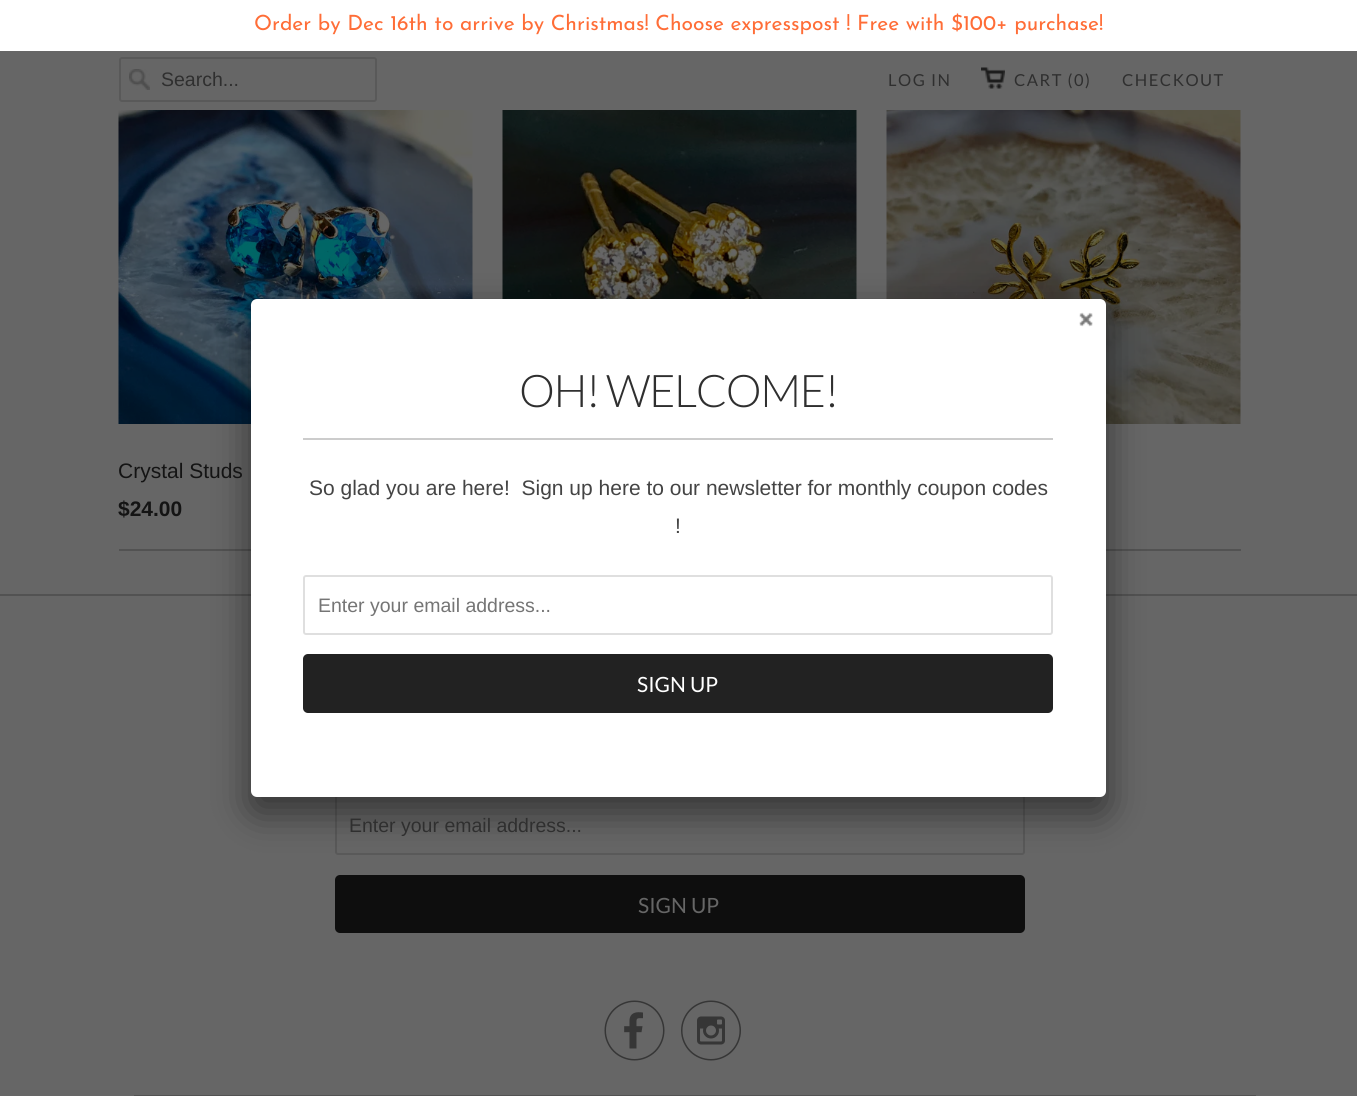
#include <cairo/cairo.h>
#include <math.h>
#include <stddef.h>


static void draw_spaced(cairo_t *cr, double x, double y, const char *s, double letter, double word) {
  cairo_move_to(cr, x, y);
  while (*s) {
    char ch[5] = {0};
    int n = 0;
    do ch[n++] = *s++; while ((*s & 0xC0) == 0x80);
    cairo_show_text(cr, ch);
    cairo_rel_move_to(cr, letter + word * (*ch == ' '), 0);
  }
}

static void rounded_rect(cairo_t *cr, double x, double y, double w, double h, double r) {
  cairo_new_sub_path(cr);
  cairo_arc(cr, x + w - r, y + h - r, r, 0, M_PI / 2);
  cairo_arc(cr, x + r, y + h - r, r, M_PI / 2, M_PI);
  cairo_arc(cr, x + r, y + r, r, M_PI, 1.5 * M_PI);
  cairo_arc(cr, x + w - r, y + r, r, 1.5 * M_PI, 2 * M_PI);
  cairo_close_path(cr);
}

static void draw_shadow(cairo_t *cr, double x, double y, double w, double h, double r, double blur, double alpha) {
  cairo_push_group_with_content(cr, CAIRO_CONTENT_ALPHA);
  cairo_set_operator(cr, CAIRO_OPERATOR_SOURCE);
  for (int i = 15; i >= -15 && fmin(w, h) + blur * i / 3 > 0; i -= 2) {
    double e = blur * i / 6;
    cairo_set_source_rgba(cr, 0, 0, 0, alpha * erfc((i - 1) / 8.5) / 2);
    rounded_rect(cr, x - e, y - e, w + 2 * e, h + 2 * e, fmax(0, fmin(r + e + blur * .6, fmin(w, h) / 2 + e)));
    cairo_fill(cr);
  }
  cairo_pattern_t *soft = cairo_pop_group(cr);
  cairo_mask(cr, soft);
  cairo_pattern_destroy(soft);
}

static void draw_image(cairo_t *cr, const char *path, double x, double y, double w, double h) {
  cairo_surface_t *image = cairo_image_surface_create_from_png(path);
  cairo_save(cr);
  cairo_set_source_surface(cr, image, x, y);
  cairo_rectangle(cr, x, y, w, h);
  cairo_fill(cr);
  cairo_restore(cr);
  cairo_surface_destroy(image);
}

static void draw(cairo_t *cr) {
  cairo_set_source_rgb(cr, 102 / 255.0, 102 / 255.0, 102 / 255.0);
  cairo_paint(cr);
  cairo_set_source_rgb(cr, 1, 1, 1);
  cairo_rectangle(cr, 0, 0, 1357, 51);
  cairo_fill(cr);
  draw_image(cr, "images/1.png", 129, 69, 21, 21);
  rounded_rect(cr, 120, 58, 256, 43, 2);
  cairo_set_source_rgb(cr, 89 / 255.0, 89 / 255.0, 89 / 255.0);
  cairo_stroke(cr);
  draw_image(cr, "images/2.png", 981, 67, 24, 22);
  cairo_set_source_rgb(cr, 82 / 255.0, 82 / 255.0, 82 / 255.0);
  cairo_rectangle(cr, 119, 549, 132, 2);
  cairo_fill(cr);
  draw_image(cr, "images/3.png", 118, 110, 355, 314);
  draw_image(cr, "images/4.png", 502, 110, 355, 189);
  cairo_rectangle(cr, 1106, 549, 135, 2);
  cairo_fill(cr);
  draw_image(cr, "images/5.png", 886, 110, 355, 314);
  cairo_rectangle(cr, 0, 594, 1357, 2);
  cairo_fill(cr);
  rounded_rect(cr, 336, 796, 688, 58, 2);
  cairo_set_source_rgb(cr, 89 / 255.0, 89 / 255.0, 89 / 255.0);
  cairo_stroke(cr);
  cairo_set_source_rgb(cr, 0, 0, 0);
  draw_shadow(cr, 251, 314, 855, 498, 6, 19, 0.5);
  cairo_set_source_rgb(cr, 1, 1, 1);
  rounded_rect(cr, 251, 299, 855, 498, 6);
  cairo_fill(cr);
  draw_image(cr, "images/6.png", 1079, 312, 14, 15);
  cairo_set_source_rgb(cr, 204 / 255.0, 204 / 255.0, 204 / 255.0);
  cairo_rectangle(cr, 303, 438, 750, 2);
  cairo_fill(cr);
  rounded_rect(cr, 304, 576, 748, 58, 2);
  cairo_set_source_rgb(cr, 223 / 255.0, 223 / 255.0, 223 / 255.0);
  cairo_stroke(cr);
  cairo_set_source_rgb(cr, 34 / 255.0, 34 / 255.0, 34 / 255.0);
  rounded_rect(cr, 303, 654, 750, 59, 5);
  cairo_fill(cr);
  cairo_set_source_rgb(cr, 14 / 255.0, 14 / 255.0, 14 / 255.0);
  rounded_rect(cr, 335, 875, 690, 58, 5);
  cairo_fill(cr);
  draw_image(cr, "images/7.png", 604, 1000, 61, 61);
  draw_image(cr, "images/8.png", 681, 1000, 60, 61);
  cairo_set_source_rgb(cr, 82 / 255.0, 82 / 255.0, 82 / 255.0);
  cairo_rectangle(cr, 134, 1095, 1122, 1);
  cairo_fill(cr);
  cairo_select_font_face(cr, "Josefin Sans Thin", CAIRO_FONT_SLANT_NORMAL, CAIRO_FONT_WEIGHT_NORMAL);
  cairo_set_font_size(cr, 21);
  cairo_set_source_rgb(cr, 1, 109 / 255.0, 55 / 255.0);
  cairo_move_to(cr, 254, 30);
  cairo_show_text(cr, "Order by Dec 16th to arrive by Christmas! Choose expresspost ! Free with $100+ purchase!");
  cairo_select_font_face(cr, "Liberation Sans", CAIRO_FONT_SLANT_NORMAL, CAIRO_FONT_WEIGHT_NORMAL);
  cairo_set_font_size(cr, 19.5);
  cairo_set_source_rgb(cr, 47 / 255.0, 47 / 255.0, 47 / 255.0);
  cairo_move_to(cr, 161, 86);
  cairo_show_text(cr, "Search...");
  cairo_select_font_face(cr, "Lato", CAIRO_FONT_SLANT_NORMAL, CAIRO_FONT_WEIGHT_NORMAL);
  cairo_set_font_size(cr, 16.5);
  draw_spaced(cr, 888, 86, "LOG IN", 1.5, 0);
  draw_spaced(cr, 1014, 86, "CART (0)", 1.5, 0);
  draw_spaced(cr, 1122, 86, "CHECKOUT", 1.5, 0);
  cairo_select_font_face(cr, "Liberation Sans", CAIRO_FONT_SLANT_NORMAL, CAIRO_FONT_WEIGHT_NORMAL);
  cairo_set_font_size(cr, 21);
  cairo_set_source_rgb(cr, 20 / 255.0, 20 / 255.0, 20 / 255.0);
  cairo_move_to(cr, 118, 478);
  cairo_show_text(cr, "Crystal Studs");
  cairo_select_font_face(cr, "Liberation Sans", CAIRO_FONT_SLANT_NORMAL, CAIRO_FONT_WEIGHT_BOLD);
  cairo_move_to(cr, 118, 516);
  cairo_show_text(cr, "$24.00");
  cairo_select_font_face(cr, "Lato Light", CAIRO_FONT_SLANT_NORMAL, CAIRO_FONT_WEIGHT_NORMAL);
  cairo_set_font_size(cr, 45);
  cairo_set_source_rgb(cr, 47 / 255.0, 47 / 255.0, 47 / 255.0);
  draw_spaced(cr, 519, 407, "OH! WELCOME!", -1.5, 0);
  cairo_select_font_face(cr, "Liberation Sans", CAIRO_FONT_SLANT_NORMAL, CAIRO_FONT_WEIGHT_NORMAL);
  cairo_set_font_size(cr, 21);
  cairo_set_source_rgb(cr, 68 / 255.0, 68 / 255.0, 68 / 255.0);
  cairo_move_to(cr, 309, 495);
  cairo_show_text(cr, "So glad you are here!  Sign up here to our newsletter for monthly coupon codes");
  cairo_move_to(cr, 675, 533);
  cairo_show_text(cr, "!");
  cairo_set_font_size(cr, 19.5);
  cairo_set_source_rgb(cr, 117 / 255.0, 117 / 255.0, 117 / 255.0);
  cairo_move_to(cr, 318, 612);
  cairo_show_text(cr, "Enter your email address...");
  cairo_select_font_face(cr, "Lato", CAIRO_FONT_SLANT_NORMAL, CAIRO_FONT_WEIGHT_NORMAL);
  cairo_set_font_size(cr, 21);
  cairo_set_source_rgb(cr, 1, 1, 1);
  cairo_move_to(cr, 637, 692);
  cairo_show_text(cr, "SIGN UP");
  cairo_select_font_face(cr, "Liberation Sans", CAIRO_FONT_SLANT_NORMAL, CAIRO_FONT_WEIGHT_NORMAL);
  cairo_set_font_size(cr, 19.5);
  cairo_set_source_rgb(cr, 47 / 255.0, 47 / 255.0, 47 / 255.0);
  cairo_move_to(cr, 349, 832);
  cairo_show_text(cr, "Enter your email address...");
  cairo_select_font_face(cr, "Lato", CAIRO_FONT_SLANT_NORMAL, CAIRO_FONT_WEIGHT_NORMAL);
  cairo_set_font_size(cr, 21);
  cairo_set_source_rgb(cr, 102 / 255.0, 102 / 255.0, 102 / 255.0);
  cairo_move_to(cr, 638, 913);
  cairo_show_text(cr, "SIGN UP");
}

int main(void) {
  cairo_surface_t *surface = cairo_image_surface_create(CAIRO_FORMAT_RGB24, 1357, 1096);
  cairo_t *cr = cairo_create(surface);
  cairo_font_options_t *options = cairo_font_options_create();
  cairo_font_options_set_hint_metrics(options, CAIRO_HINT_METRICS_OFF);
  cairo_font_options_set_hint_style(options, CAIRO_HINT_STYLE_NONE);
  cairo_set_font_options(cr, options);
  cairo_set_miter_limit(cr, 4);
  draw(cr);
  cairo_surface_write_to_png(surface, "out.png");
  cairo_font_options_destroy(options);
  cairo_destroy(cr);
  cairo_surface_destroy(surface);
  return 0;
}
